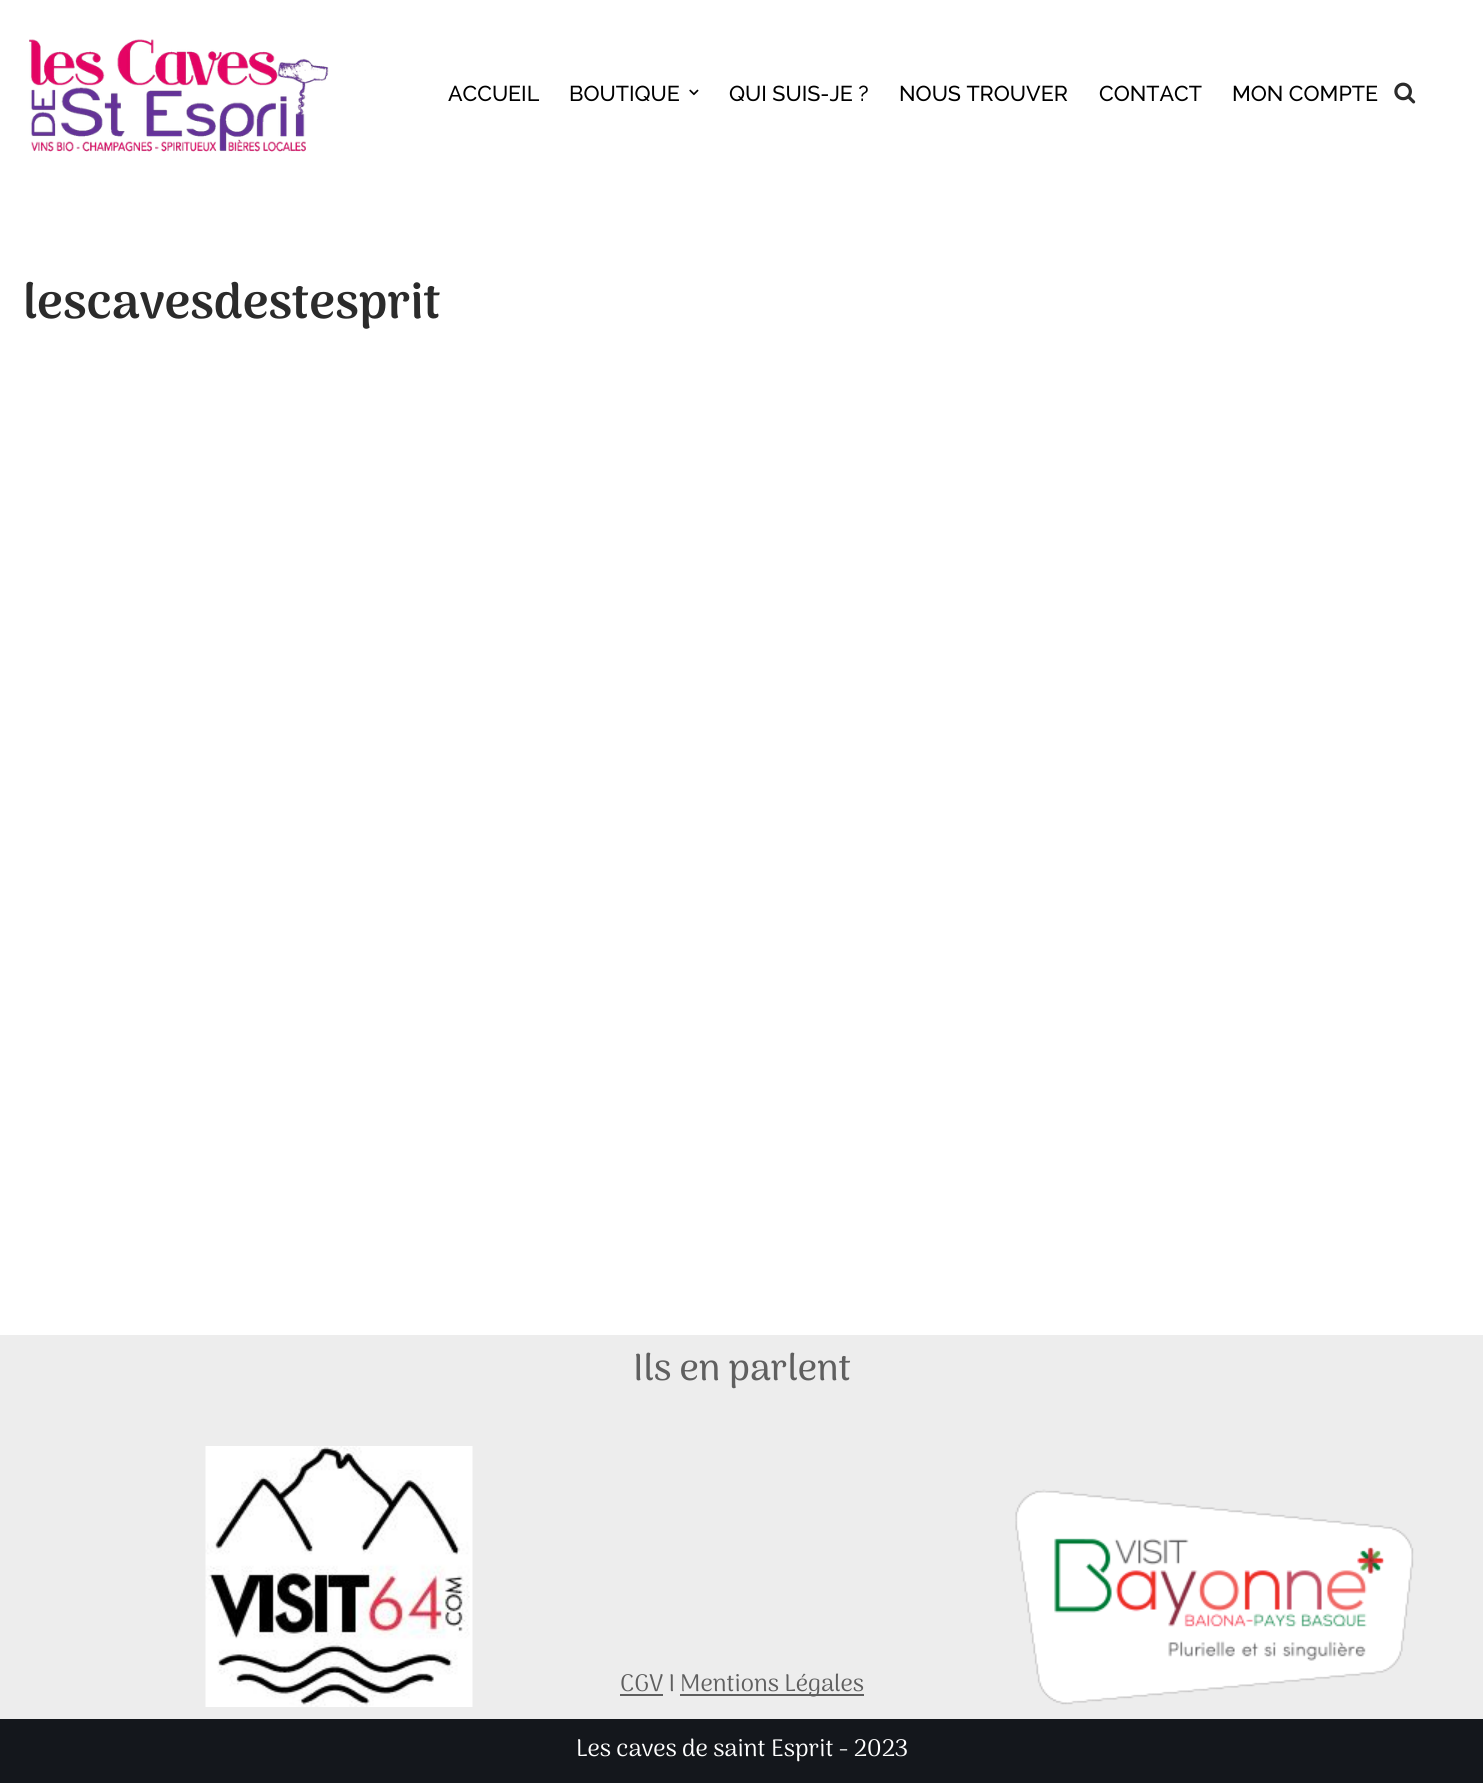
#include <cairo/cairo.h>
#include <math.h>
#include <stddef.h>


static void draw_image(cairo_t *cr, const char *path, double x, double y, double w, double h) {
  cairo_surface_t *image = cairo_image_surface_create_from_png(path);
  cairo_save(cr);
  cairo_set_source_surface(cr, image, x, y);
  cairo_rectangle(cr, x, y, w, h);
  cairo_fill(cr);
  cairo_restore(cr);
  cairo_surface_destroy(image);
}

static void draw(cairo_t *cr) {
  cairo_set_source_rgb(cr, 1, 1, 1);
  cairo_paint(cr);
  draw_image(cr, "images/1.png", 29, 39, 300, 113);
  draw_image(cr, "images/2.png", 689, 89, 10, 7);
  draw_image(cr, "images/3.png", 1394, 82, 22, 22);
  cairo_set_source_rgb(cr, 237 / 255.0, 237 / 255.0, 237 / 255.0);
  cairo_rectangle(cr, 0, 1335, 1483, 384);
  cairo_fill(cr);
  draw_image(cr, "images/4.png", 205, 1446, 268, 261);
  cairo_set_source_rgb(cr, 95 / 255.0, 95 / 255.0, 95 / 255.0);
  cairo_rectangle(cr, 620, 1694, 43, 2);
  cairo_fill(cr);
  cairo_rectangle(cr, 680, 1694, 184, 2);
  cairo_fill(cr);
  draw_image(cr, "images/5.png", 1015, 1489, 399, 216);
  cairo_set_source_rgb(cr, 20 / 255.0, 23 / 255.0, 28 / 255.0);
  cairo_rectangle(cr, 0, 1719, 1483, 64);
  cairo_fill(cr);
  cairo_select_font_face(cr, "Raleway Medium", CAIRO_FONT_SLANT_NORMAL, CAIRO_FONT_WEIGHT_NORMAL);
  cairo_set_font_size(cr, 21.5);
  cairo_set_source_rgb(cr, 0, 0, 0);
  cairo_move_to(cr, 448, 101);
  cairo_show_text(cr, "ACCUEIL");
  cairo_move_to(cr, 569, 101);
  cairo_show_text(cr, "BOUTIQUE");
  cairo_move_to(cr, 729, 101);
  cairo_show_text(cr, "QUI SUIS-JE ?");
  cairo_move_to(cr, 899, 101);
  cairo_show_text(cr, "NOUS TROUVER");
  cairo_move_to(cr, 1099, 101);
  cairo_show_text(cr, "CONTACT");
  cairo_move_to(cr, 1232, 101);
  cairo_show_text(cr, "MON COMPTE");
  cairo_select_font_face(cr, "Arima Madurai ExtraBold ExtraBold", CAIRO_FONT_SLANT_NORMAL, CAIRO_FONT_WEIGHT_NORMAL);
  cairo_set_font_size(cr, 49.5);
  cairo_set_source_rgb(cr, 43 / 255.0, 43 / 255.0, 43 / 255.0);
  cairo_move_to(cr, 23, 318);
  cairo_show_text(cr, "lescavesdestesprit");
  cairo_select_font_face(cr, "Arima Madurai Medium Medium", CAIRO_FONT_SLANT_NORMAL, CAIRO_FONT_WEIGHT_NORMAL);
  cairo_set_font_size(cr, 37.5);
  cairo_set_source_rgb(cr, 95 / 255.0, 95 / 255.0, 95 / 255.0);
  cairo_move_to(cr, 633, 1380);
  cairo_show_text(cr, "Ils en parlent");
  cairo_select_font_face(cr, "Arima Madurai", CAIRO_FONT_SLANT_NORMAL, CAIRO_FONT_WEIGHT_NORMAL);
  cairo_set_font_size(cr, 24);
  cairo_move_to(cr, 620, 1691);
  cairo_show_text(cr, "CGV I");
  cairo_move_to(cr, 680, 1691);
  cairo_show_text(cr, "Mentions Légales");
  cairo_set_source_rgb(cr, 1, 1, 1);
  cairo_move_to(cr, 576, 1756);
  cairo_show_text(cr, "Les caves de saint Esprit - 2023");
}

int main(void) {
  cairo_surface_t *surface = cairo_image_surface_create(CAIRO_FORMAT_RGB24, 1483, 1783);
  cairo_t *cr = cairo_create(surface);
  cairo_font_options_t *options = cairo_font_options_create();
  cairo_font_options_set_hint_metrics(options, CAIRO_HINT_METRICS_OFF);
  cairo_font_options_set_hint_style(options, CAIRO_HINT_STYLE_NONE);
  cairo_set_font_options(cr, options);
  cairo_set_miter_limit(cr, 4);
  draw(cr);
  cairo_surface_write_to_png(surface, "out.png");
  cairo_font_options_destroy(options);
  cairo_destroy(cr);
  cairo_surface_destroy(surface);
  return 0;
}
